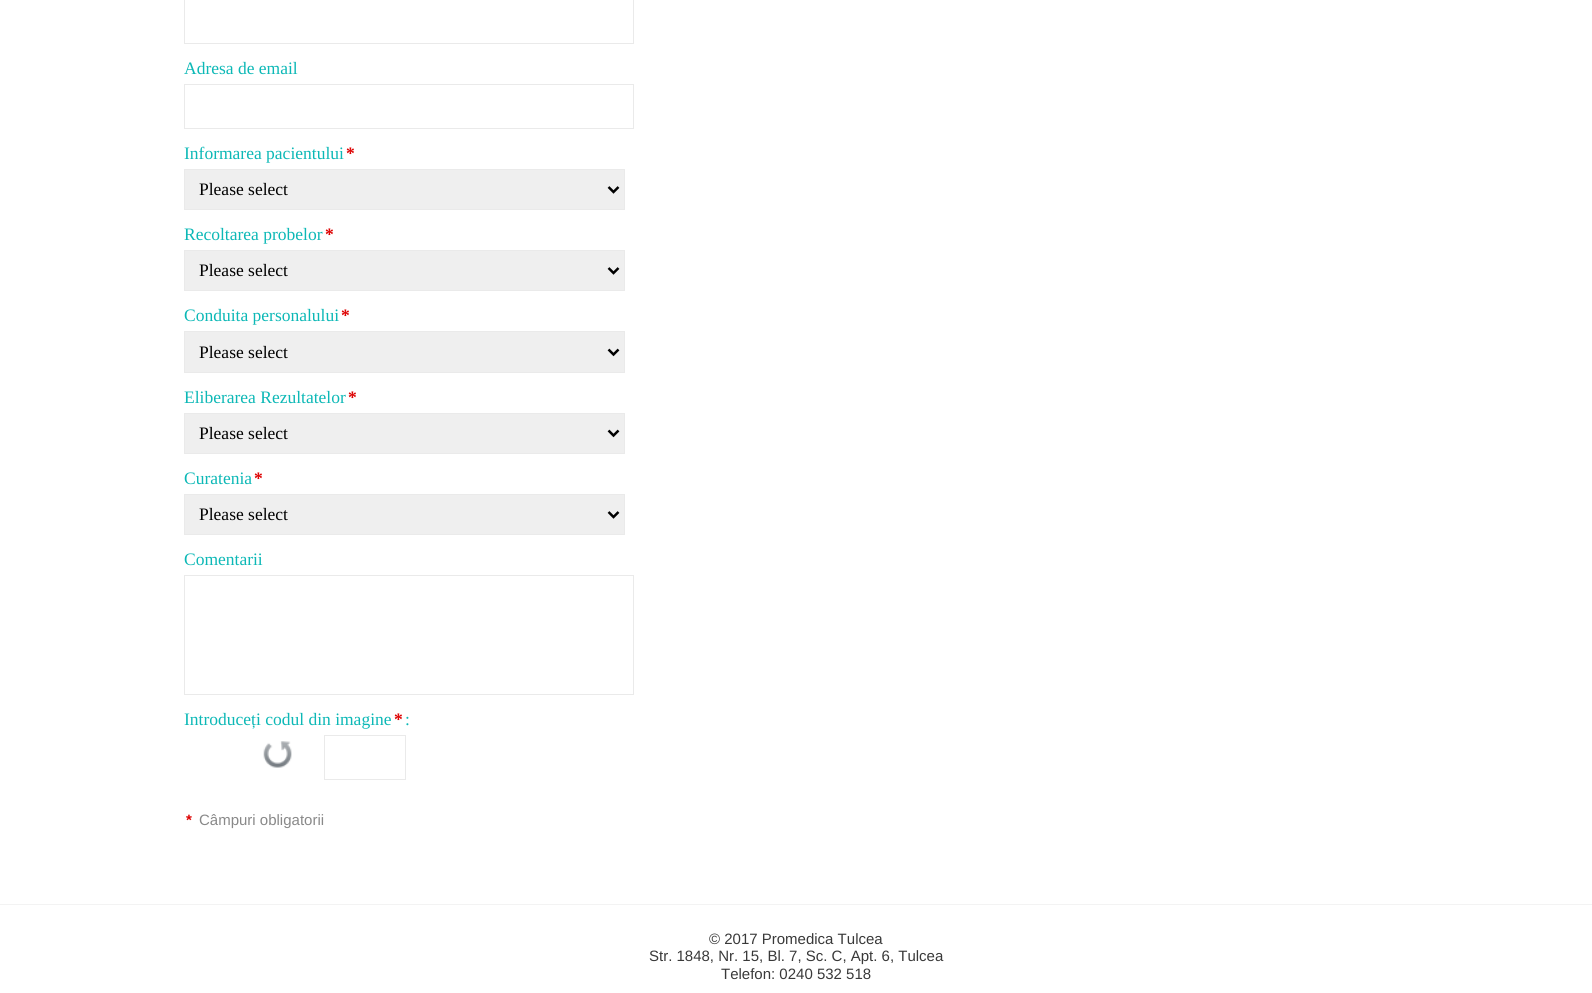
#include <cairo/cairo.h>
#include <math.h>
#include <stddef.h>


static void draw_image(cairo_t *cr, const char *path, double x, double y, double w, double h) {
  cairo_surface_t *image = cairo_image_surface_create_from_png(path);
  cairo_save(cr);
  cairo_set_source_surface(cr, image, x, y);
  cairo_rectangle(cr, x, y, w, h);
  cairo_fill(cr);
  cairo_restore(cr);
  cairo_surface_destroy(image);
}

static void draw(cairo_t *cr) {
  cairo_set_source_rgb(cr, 1, 1, 1);
  cairo_paint(cr);
  cairo_rectangle(cr, 184.5, -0.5, 449, 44);
  cairo_set_source_rgb(cr, 234 / 255.0, 234 / 255.0, 234 / 255.0);
  cairo_set_line_width(cr, 1);
  cairo_stroke(cr);
  cairo_rectangle(cr, 184.5, 84.5, 449, 44);
  cairo_stroke(cr);
  cairo_set_source_rgb(cr, 239 / 255.0, 239 / 255.0, 239 / 255.0);
  cairo_rectangle(cr, 184.5, 169.5, 440, 40);
  cairo_fill_preserve(cr);
  cairo_set_source_rgb(cr, 234 / 255.0, 234 / 255.0, 234 / 255.0);
  cairo_stroke(cr);
  cairo_new_path(cr);
  cairo_move_to(cr, 608.5, 187);
  cairo_line_to(cr, 613.5, 192);
  cairo_line_to(cr, 618.5, 187);
  cairo_set_source_rgb(cr, 0, 0, 0);
  cairo_set_line_width(cr, 2.5);
  cairo_stroke(cr);
  cairo_set_source_rgb(cr, 239 / 255.0, 239 / 255.0, 239 / 255.0);
  cairo_rectangle(cr, 184.5, 250.5, 440, 40);
  cairo_fill_preserve(cr);
  cairo_set_source_rgb(cr, 234 / 255.0, 234 / 255.0, 234 / 255.0);
  cairo_set_line_width(cr, 1);
  cairo_stroke(cr);
  cairo_new_path(cr);
  cairo_move_to(cr, 608.5, 268);
  cairo_line_to(cr, 613.5, 273);
  cairo_line_to(cr, 618.5, 268);
  cairo_set_source_rgb(cr, 0, 0, 0);
  cairo_set_line_width(cr, 2.5);
  cairo_stroke(cr);
  cairo_set_source_rgb(cr, 239 / 255.0, 239 / 255.0, 239 / 255.0);
  cairo_rectangle(cr, 184.5, 331.5, 440, 41);
  cairo_fill_preserve(cr);
  cairo_set_source_rgb(cr, 234 / 255.0, 234 / 255.0, 234 / 255.0);
  cairo_set_line_width(cr, 1);
  cairo_stroke(cr);
  cairo_new_path(cr);
  cairo_move_to(cr, 608.5, 349.5);
  cairo_line_to(cr, 613.5, 354.5);
  cairo_line_to(cr, 618.5, 349.5);
  cairo_set_source_rgb(cr, 0, 0, 0);
  cairo_set_line_width(cr, 2.5);
  cairo_stroke(cr);
  cairo_set_source_rgb(cr, 239 / 255.0, 239 / 255.0, 239 / 255.0);
  cairo_rectangle(cr, 184.5, 413.5, 440, 40);
  cairo_fill_preserve(cr);
  cairo_set_source_rgb(cr, 234 / 255.0, 234 / 255.0, 234 / 255.0);
  cairo_set_line_width(cr, 1);
  cairo_stroke(cr);
  cairo_new_path(cr);
  cairo_move_to(cr, 608.5, 430.5);
  cairo_line_to(cr, 613.5, 435.5);
  cairo_line_to(cr, 618.5, 430.5);
  cairo_set_source_rgb(cr, 0, 0, 0);
  cairo_set_line_width(cr, 2.5);
  cairo_stroke(cr);
  cairo_set_source_rgb(cr, 239 / 255.0, 239 / 255.0, 239 / 255.0);
  cairo_rectangle(cr, 184.5, 494.5, 440, 40);
  cairo_fill_preserve(cr);
  cairo_set_source_rgb(cr, 234 / 255.0, 234 / 255.0, 234 / 255.0);
  cairo_set_line_width(cr, 1);
  cairo_stroke(cr);
  cairo_new_path(cr);
  cairo_move_to(cr, 608.5, 512);
  cairo_line_to(cr, 613.5, 517);
  cairo_line_to(cr, 618.5, 512);
  cairo_set_source_rgb(cr, 0, 0, 0);
  cairo_set_line_width(cr, 2.5);
  cairo_stroke(cr);
  cairo_rectangle(cr, 184.5, 575.5, 449, 119);
  cairo_set_source_rgb(cr, 234 / 255.0, 234 / 255.0, 234 / 255.0);
  cairo_set_line_width(cr, 1);
  cairo_stroke(cr);
  draw_image(cr, "images/1.png", 263, 741, 29, 27);
  cairo_rectangle(cr, 324.5, 735.5, 81, 44);
  cairo_stroke(cr);
  cairo_set_source_rgb(cr, 243 / 255.0, 243 / 255.0, 243 / 255.0);
  cairo_rectangle(cr, 0, 904, 1592, 1);
  cairo_fill(cr);
  cairo_select_font_face(cr, "Liberation Serif", CAIRO_FONT_SLANT_NORMAL, CAIRO_FONT_WEIGHT_NORMAL);
  cairo_set_font_size(cr, 17.5);
  cairo_set_source_rgb(cr, 12 / 255.0, 184 / 255.0, 182 / 255.0);
  cairo_move_to(cr, 184, 74);
  cairo_show_text(cr, "Adresa de email");
  cairo_move_to(cr, 184, 159);
  cairo_show_text(cr, "Informarea pacientului");
  cairo_select_font_face(cr, "Liberation Serif", CAIRO_FONT_SLANT_NORMAL, CAIRO_FONT_WEIGHT_BOLD);
  cairo_set_source_rgb(cr, 221 / 255.0, 0, 0);
  cairo_move_to(cr, 346, 159);
  cairo_show_text(cr, "*");
  cairo_select_font_face(cr, "Liberation Serif", CAIRO_FONT_SLANT_NORMAL, CAIRO_FONT_WEIGHT_NORMAL);
  cairo_set_source_rgb(cr, 0, 0, 0);
  cairo_move_to(cr, 199, 195);
  cairo_show_text(cr, "Please select");
  cairo_set_source_rgb(cr, 12 / 255.0, 184 / 255.0, 182 / 255.0);
  cairo_move_to(cr, 184, 240);
  cairo_show_text(cr, "Recoltarea probelor");
  cairo_select_font_face(cr, "Liberation Serif", CAIRO_FONT_SLANT_NORMAL, CAIRO_FONT_WEIGHT_BOLD);
  cairo_set_source_rgb(cr, 221 / 255.0, 0, 0);
  cairo_move_to(cr, 325, 240);
  cairo_show_text(cr, "*");
  cairo_select_font_face(cr, "Liberation Serif", CAIRO_FONT_SLANT_NORMAL, CAIRO_FONT_WEIGHT_NORMAL);
  cairo_set_source_rgb(cr, 0, 0, 0);
  cairo_move_to(cr, 199, 276);
  cairo_show_text(cr, "Please select");
  cairo_set_source_rgb(cr, 12 / 255.0, 184 / 255.0, 182 / 255.0);
  cairo_move_to(cr, 184, 321);
  cairo_show_text(cr, "Conduita personalului");
  cairo_select_font_face(cr, "Liberation Serif", CAIRO_FONT_SLANT_NORMAL, CAIRO_FONT_WEIGHT_BOLD);
  cairo_set_source_rgb(cr, 221 / 255.0, 0, 0);
  cairo_move_to(cr, 341, 321);
  cairo_show_text(cr, "*");
  cairo_select_font_face(cr, "Liberation Serif", CAIRO_FONT_SLANT_NORMAL, CAIRO_FONT_WEIGHT_NORMAL);
  cairo_set_source_rgb(cr, 0, 0, 0);
  cairo_move_to(cr, 199, 358);
  cairo_show_text(cr, "Please select");
  cairo_set_source_rgb(cr, 12 / 255.0, 184 / 255.0, 182 / 255.0);
  cairo_move_to(cr, 184, 403);
  cairo_show_text(cr, "Eliberarea Rezultatelor");
  cairo_select_font_face(cr, "Liberation Serif", CAIRO_FONT_SLANT_NORMAL, CAIRO_FONT_WEIGHT_BOLD);
  cairo_set_source_rgb(cr, 221 / 255.0, 0, 0);
  cairo_move_to(cr, 348, 403);
  cairo_show_text(cr, "*");
  cairo_select_font_face(cr, "Liberation Serif", CAIRO_FONT_SLANT_NORMAL, CAIRO_FONT_WEIGHT_NORMAL);
  cairo_set_source_rgb(cr, 0, 0, 0);
  cairo_move_to(cr, 199, 439);
  cairo_show_text(cr, "Please select");
  cairo_set_source_rgb(cr, 12 / 255.0, 184 / 255.0, 182 / 255.0);
  cairo_move_to(cr, 184, 484);
  cairo_show_text(cr, "Curatenia");
  cairo_select_font_face(cr, "Liberation Serif", CAIRO_FONT_SLANT_NORMAL, CAIRO_FONT_WEIGHT_BOLD);
  cairo_set_source_rgb(cr, 221 / 255.0, 0, 0);
  cairo_move_to(cr, 254, 484);
  cairo_show_text(cr, "*");
  cairo_select_font_face(cr, "Liberation Serif", CAIRO_FONT_SLANT_NORMAL, CAIRO_FONT_WEIGHT_NORMAL);
  cairo_set_source_rgb(cr, 0, 0, 0);
  cairo_move_to(cr, 199, 520);
  cairo_show_text(cr, "Please select");
  cairo_set_source_rgb(cr, 12 / 255.0, 184 / 255.0, 182 / 255.0);
  cairo_move_to(cr, 184, 565);
  cairo_show_text(cr, "Comentarii");
  cairo_move_to(cr, 184, 725);
  cairo_show_text(cr, "Introduceți codul din imagine");
  cairo_select_font_face(cr, "Liberation Serif", CAIRO_FONT_SLANT_NORMAL, CAIRO_FONT_WEIGHT_BOLD);
  cairo_set_source_rgb(cr, 221 / 255.0, 0, 0);
  cairo_move_to(cr, 394, 725);
  cairo_show_text(cr, "*");
  cairo_select_font_face(cr, "Liberation Serif", CAIRO_FONT_SLANT_NORMAL, CAIRO_FONT_WEIGHT_NORMAL);
  cairo_set_source_rgb(cr, 12 / 255.0, 184 / 255.0, 182 / 255.0);
  cairo_move_to(cr, 405, 725);
  cairo_show_text(cr, ":");
  cairo_select_font_face(cr, "Liberation Sans", CAIRO_FONT_SLANT_NORMAL, CAIRO_FONT_WEIGHT_BOLD);
  cairo_set_font_size(cr, 15);
  cairo_set_source_rgb(cr, 221 / 255.0, 0, 0);
  cairo_move_to(cr, 186, 825);
  cairo_show_text(cr, "*");
  cairo_select_font_face(cr, "Liberation Sans", CAIRO_FONT_SLANT_NORMAL, CAIRO_FONT_WEIGHT_NORMAL);
  cairo_set_source_rgb(cr, 137 / 255.0, 137 / 255.0, 137 / 255.0);
  cairo_move_to(cr, 199, 825);
  cairo_show_text(cr, "Câmpuri obligatorii");
  cairo_set_source_rgb(cr, 57 / 255.0, 57 / 255.0, 57 / 255.0);
  cairo_move_to(cr, 709, 944);
  cairo_show_text(cr, "© 2017 Promedica Tulcea");
  cairo_move_to(cr, 649, 961);
  cairo_show_text(cr, "Str. 1848, Nr. 15, Bl. 7, Sc. C, Apt. 6, Tulcea");
  cairo_move_to(cr, 721, 979);
  cairo_show_text(cr, "Telefon: 0240 532 518");
}

int main(void) {
  cairo_surface_t *surface = cairo_image_surface_create(CAIRO_FORMAT_RGB24, 1592, 993);
  cairo_t *cr = cairo_create(surface);
  cairo_font_options_t *options = cairo_font_options_create();
  cairo_font_options_set_hint_metrics(options, CAIRO_HINT_METRICS_OFF);
  cairo_font_options_set_hint_style(options, CAIRO_HINT_STYLE_NONE);
  cairo_set_font_options(cr, options);
  cairo_set_miter_limit(cr, 4);
  draw(cr);
  cairo_surface_write_to_png(surface, "out.png");
  cairo_font_options_destroy(options);
  cairo_destroy(cr);
  cairo_surface_destroy(surface);
  return 0;
}
